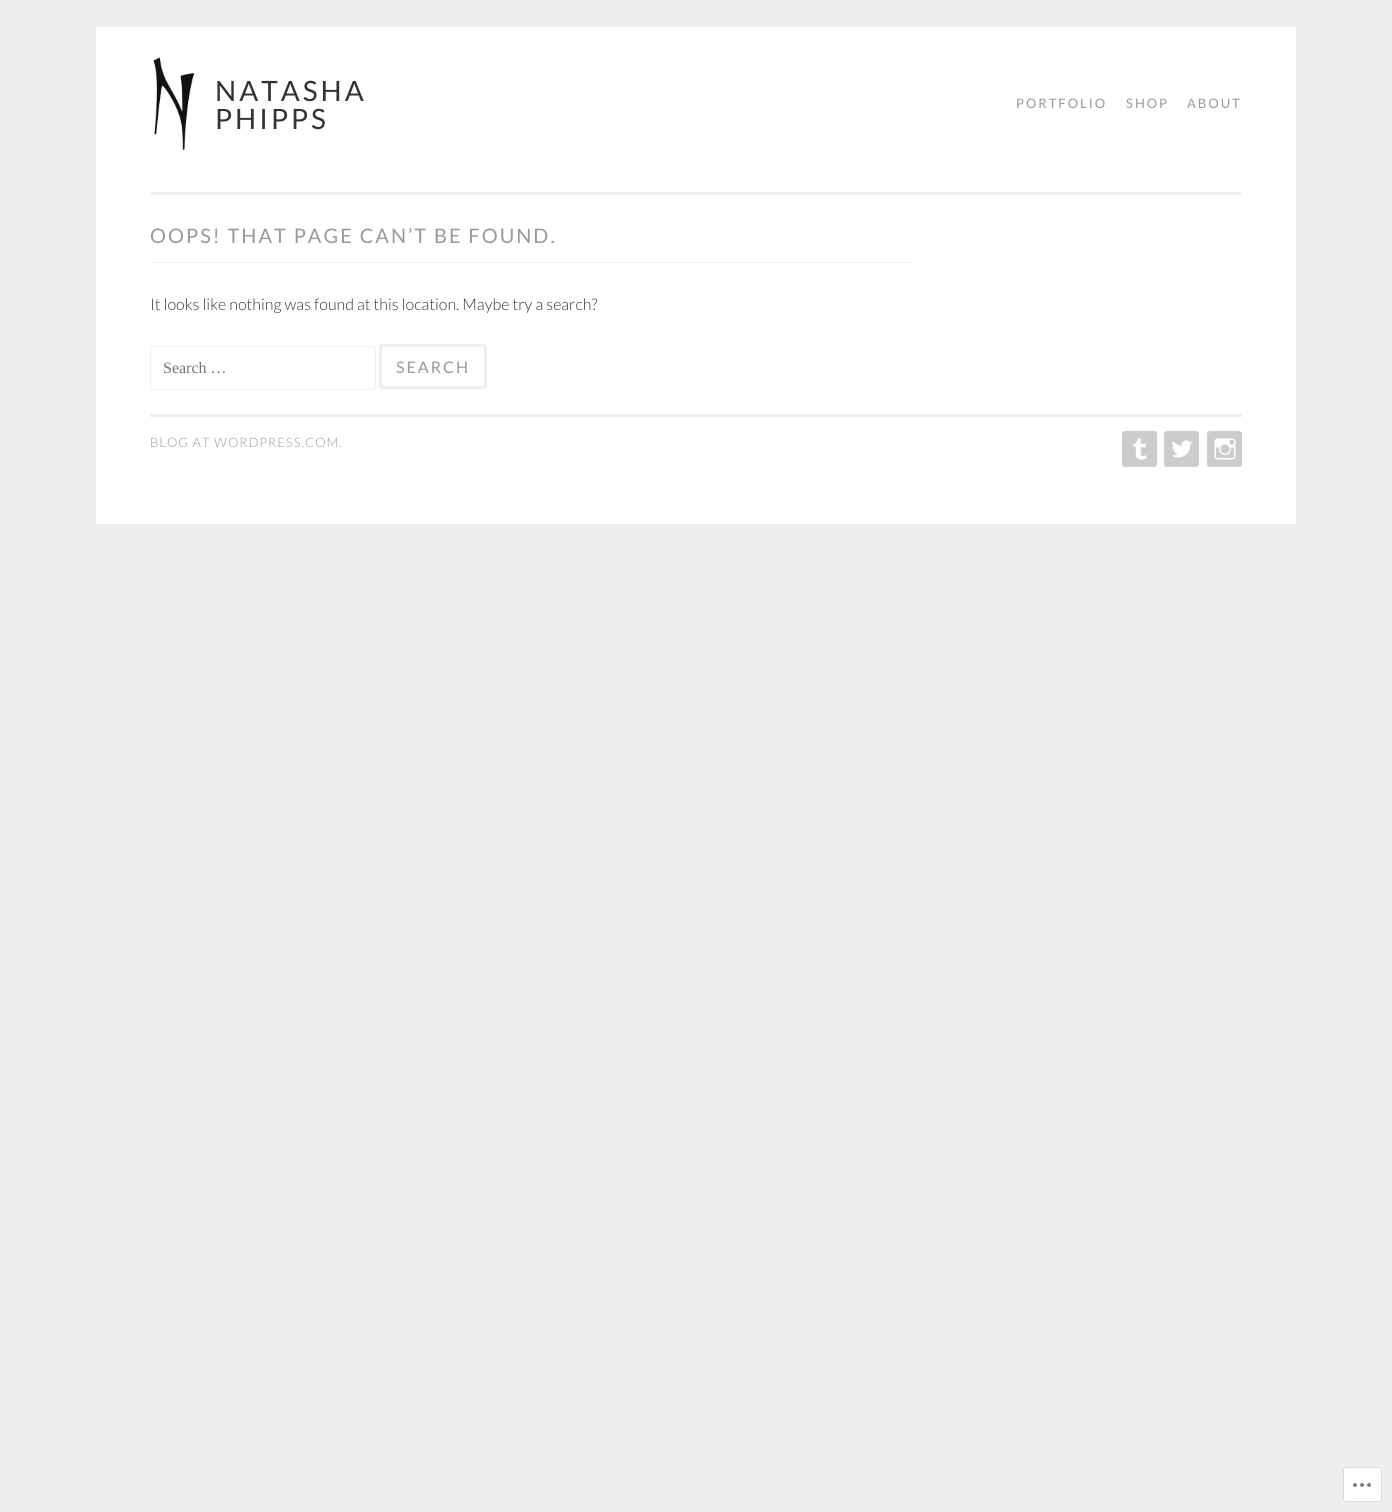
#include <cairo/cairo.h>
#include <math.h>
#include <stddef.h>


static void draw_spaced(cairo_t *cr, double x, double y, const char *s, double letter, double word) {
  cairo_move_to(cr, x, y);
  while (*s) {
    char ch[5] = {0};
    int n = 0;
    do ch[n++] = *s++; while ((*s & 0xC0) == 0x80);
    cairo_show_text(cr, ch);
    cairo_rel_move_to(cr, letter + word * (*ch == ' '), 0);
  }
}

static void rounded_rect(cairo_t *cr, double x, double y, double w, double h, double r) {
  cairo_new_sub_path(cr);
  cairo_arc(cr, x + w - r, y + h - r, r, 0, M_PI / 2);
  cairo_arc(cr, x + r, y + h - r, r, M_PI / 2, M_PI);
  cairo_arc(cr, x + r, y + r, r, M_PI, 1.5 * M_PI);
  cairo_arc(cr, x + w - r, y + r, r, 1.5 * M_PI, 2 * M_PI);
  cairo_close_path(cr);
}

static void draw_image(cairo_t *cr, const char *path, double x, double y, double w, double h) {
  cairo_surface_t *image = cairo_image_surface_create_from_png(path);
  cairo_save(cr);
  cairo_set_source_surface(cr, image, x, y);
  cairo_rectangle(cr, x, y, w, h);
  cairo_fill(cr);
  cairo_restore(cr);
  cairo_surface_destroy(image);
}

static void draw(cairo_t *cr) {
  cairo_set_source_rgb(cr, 238 / 255.0, 238 / 255.0, 238 / 255.0);
  cairo_paint(cr);
  cairo_set_source_rgb(cr, 1, 1, 1);
  cairo_rectangle(cr, 96, 27, 1200, 497);
  cairo_fill(cr);
  cairo_set_source_rgb(cr, 238 / 255.0, 238 / 255.0, 238 / 255.0);
  cairo_rectangle(cr, 150, 192, 1092, 3);
  cairo_fill(cr);
  draw_image(cr, "images/1.png", 153, 57, 42, 93);
  cairo_rectangle(cr, 150, 262, 764, 1);
  cairo_fill(cr);
  rounded_rect(cr, 150.5, 346.5, 225, 43, 2.5);
  cairo_set_line_width(cr, 1);
  cairo_stroke(cr);
  rounded_rect(cr, 380.5, 345.5, 105, 42, 1.5);
  cairo_set_line_width(cr, 3);
  cairo_stroke(cr);
  cairo_rectangle(cr, 150, 414, 1092, 3);
  cairo_fill(cr);
  cairo_set_source_rgb(cr, 204 / 255.0, 204 / 255.0, 204 / 255.0);
  rounded_rect(cr, 1122, 431, 35, 36, 3);
  cairo_fill(cr);
  draw_image(cr, "images/2.png", 1133, 438, 14, 22);
  rounded_rect(cr, 1164, 431, 35, 36, 3);
  cairo_fill(cr);
  draw_image(cr, "images/3.png", 1172, 440, 21, 18);
  rounded_rect(cr, 1207, 431, 35, 36, 3);
  cairo_fill(cr);
  draw_image(cr, "images/4.png", 1214, 438, 22, 22);
  cairo_set_source_rgb(cr, 1, 1, 1);
  rounded_rect(cr, 1343.5, 1467.5, 38, 34, 2.5);
  cairo_fill_preserve(cr);
  cairo_set_source_rgb(cr, 220 / 255.0, 220 / 255.0, 222 / 255.0);
  cairo_set_line_width(cr, 1);
  cairo_stroke(cr);
  draw_image(cr, "images/5.png", 1353, 1483, 18, 4);
  cairo_select_font_face(cr, "Lato", CAIRO_FONT_SLANT_NORMAL, CAIRO_FONT_WEIGHT_NORMAL);
  cairo_set_font_size(cr, 28);
  cairo_set_source_rgb(cr, 51 / 255.0, 51 / 255.0, 51 / 255.0);
  draw_spaced(cr, 215, 101, "NATASHA", 3, 0);
  draw_spaced(cr, 215, 129, "PHIPPS", 3, 0);
  cairo_set_font_size(cr, 13);
  cairo_set_source_rgb(cr, 153 / 255.0, 153 / 255.0, 153 / 255.0);
  draw_spaced(cr, 1016, 108, "PORTFOLIO", 2, 0);
  draw_spaced(cr, 1126, 108, "SHOP", 2, 0);
  draw_spaced(cr, 1187, 108, "ABOUT", 2, 0);
  cairo_set_font_size(cr, 20);
  draw_spaced(cr, 150, 243, "OOPS! THAT PAGE CAN’T BE FOUND.", 2, 0);
  cairo_select_font_face(cr, "Lato Light", CAIRO_FONT_SLANT_NORMAL, CAIRO_FONT_WEIGHT_NORMAL);
  cairo_set_font_size(cr, 16);
  cairo_set_source_rgb(cr, 51 / 255.0, 51 / 255.0, 51 / 255.0);
  cairo_move_to(cr, 150, 310);
  cairo_show_text(cr, "It looks like nothing was found at this location. Maybe try a search?");
  cairo_select_font_face(cr, "Liberation Serif", CAIRO_FONT_SLANT_NORMAL, CAIRO_FONT_WEIGHT_NORMAL);
  cairo_set_source_rgb(cr, 117 / 255.0, 117 / 255.0, 117 / 255.0);
  cairo_move_to(cr, 163, 373);
  cairo_show_text(cr, "Search …");
  cairo_select_font_face(cr, "Lato", CAIRO_FONT_SLANT_NORMAL, CAIRO_FONT_WEIGHT_NORMAL);
  cairo_set_source_rgb(cr, 153 / 255.0, 153 / 255.0, 153 / 255.0);
  draw_spaced(cr, 396, 373, "SEARCH", 2, 0);
  cairo_select_font_face(cr, "Lato Light", CAIRO_FONT_SLANT_NORMAL, CAIRO_FONT_WEIGHT_NORMAL);
  cairo_set_font_size(cr, 13);
  draw_spaced(cr, 150, 447, "BLOG AT WORDPRESS.COM.", 1, 0);
}

int main(void) {
  cairo_surface_t *surface = cairo_image_surface_create(CAIRO_FORMAT_RGB24, 1392, 1512);
  cairo_t *cr = cairo_create(surface);
  cairo_font_options_t *options = cairo_font_options_create();
  cairo_font_options_set_hint_metrics(options, CAIRO_HINT_METRICS_OFF);
  cairo_font_options_set_hint_style(options, CAIRO_HINT_STYLE_NONE);
  cairo_set_font_options(cr, options);
  cairo_set_miter_limit(cr, 4);
  draw(cr);
  cairo_surface_write_to_png(surface, "out.png");
  cairo_font_options_destroy(options);
  cairo_destroy(cr);
  cairo_surface_destroy(surface);
  return 0;
}
